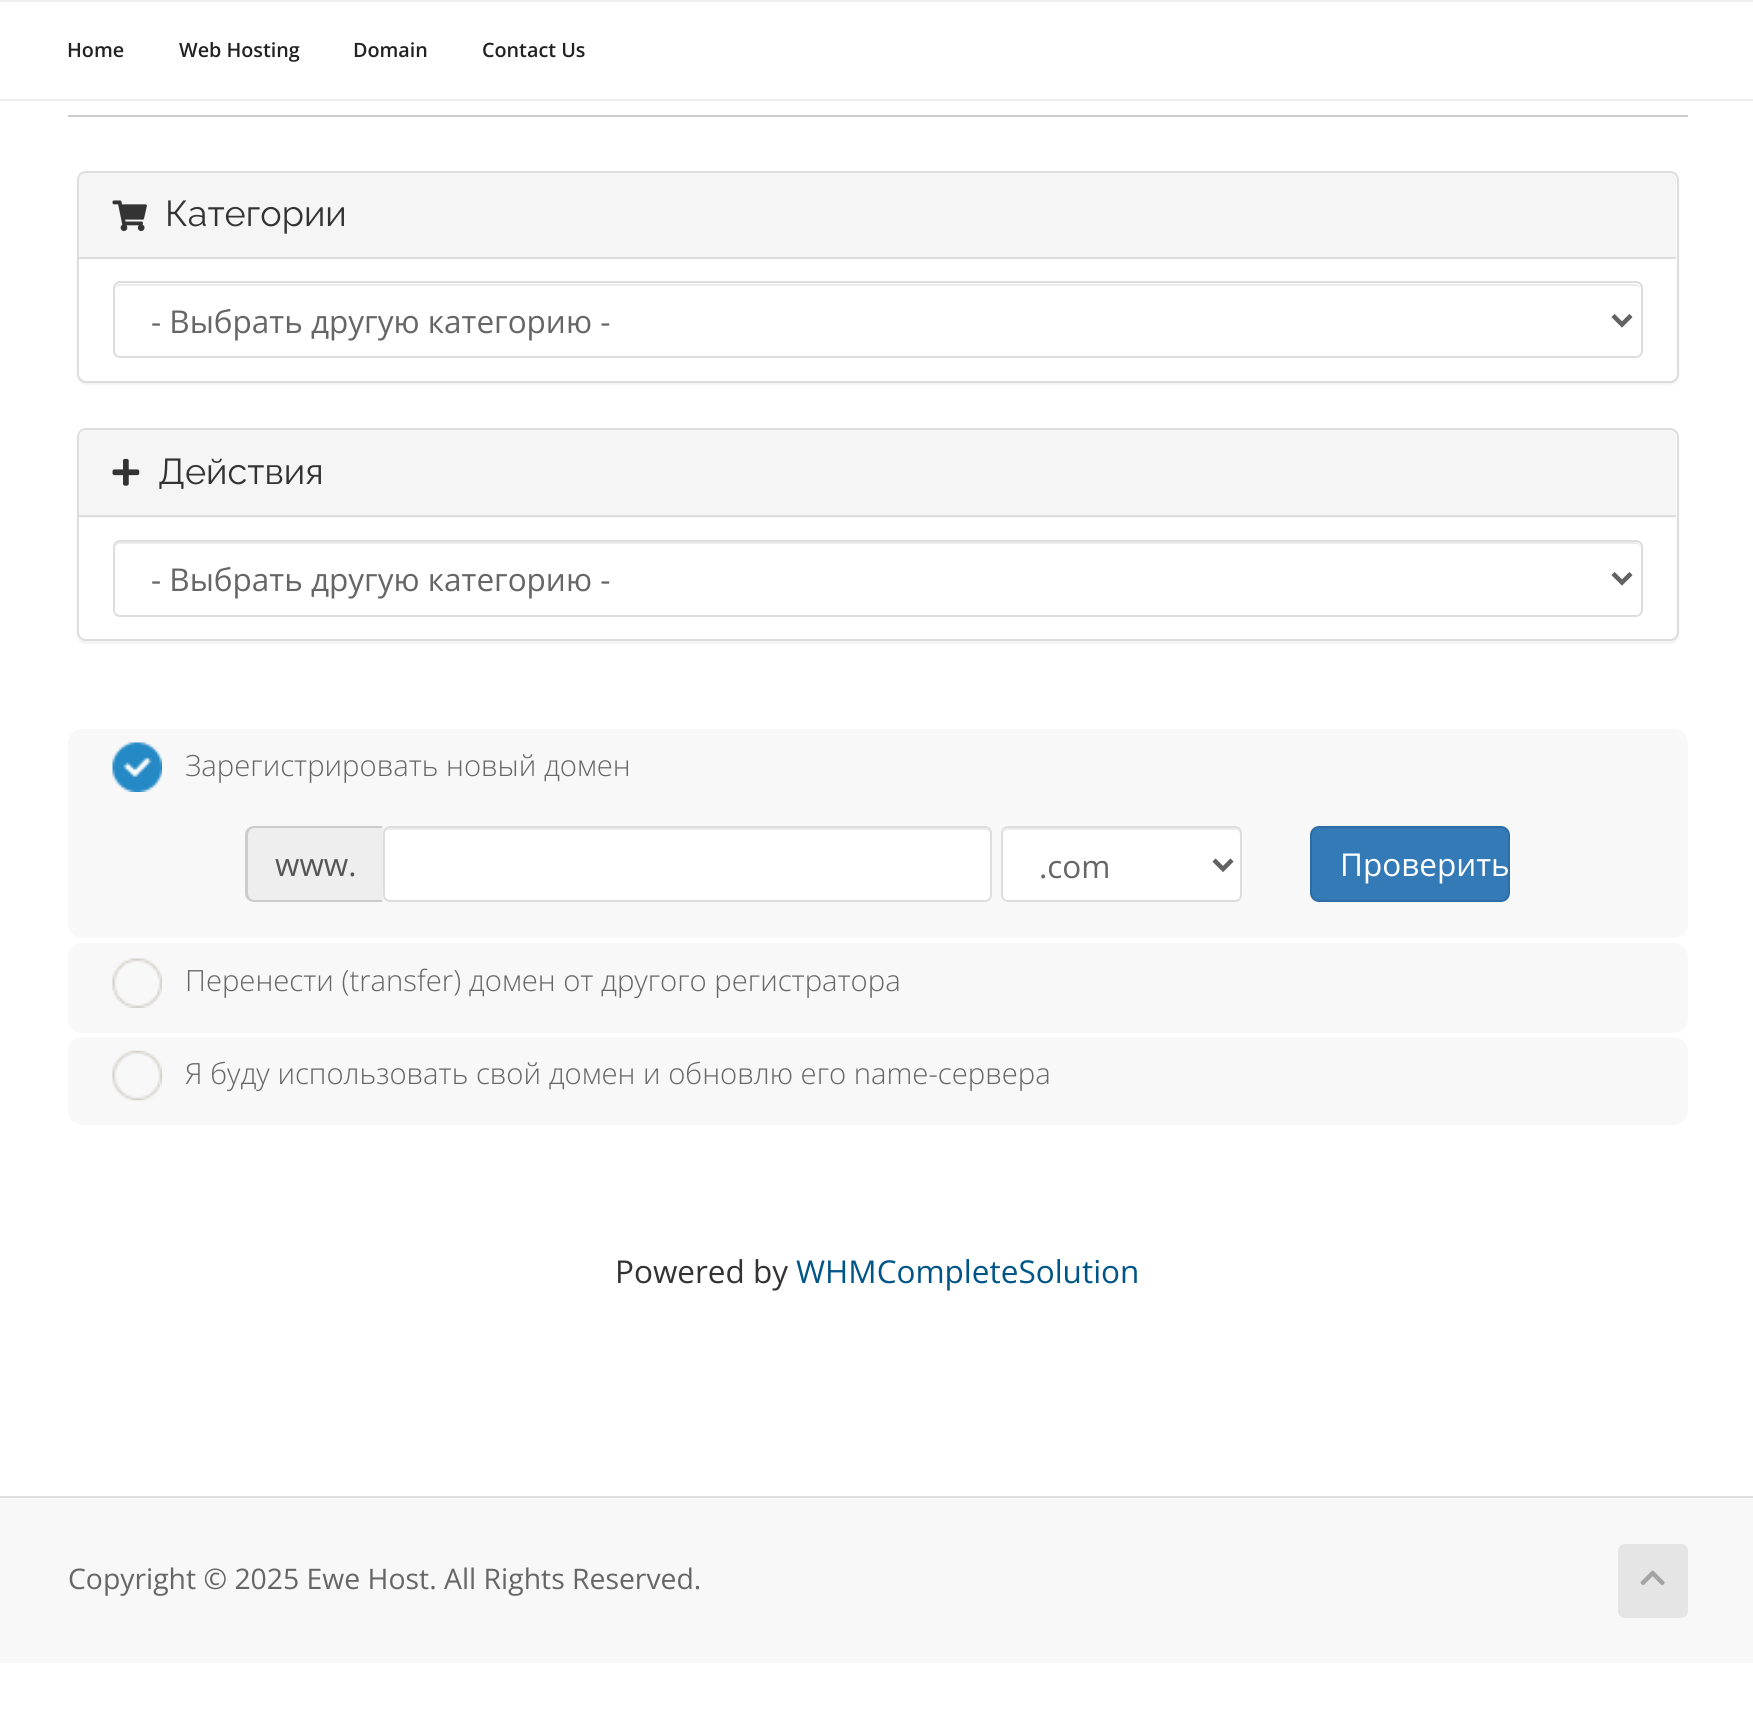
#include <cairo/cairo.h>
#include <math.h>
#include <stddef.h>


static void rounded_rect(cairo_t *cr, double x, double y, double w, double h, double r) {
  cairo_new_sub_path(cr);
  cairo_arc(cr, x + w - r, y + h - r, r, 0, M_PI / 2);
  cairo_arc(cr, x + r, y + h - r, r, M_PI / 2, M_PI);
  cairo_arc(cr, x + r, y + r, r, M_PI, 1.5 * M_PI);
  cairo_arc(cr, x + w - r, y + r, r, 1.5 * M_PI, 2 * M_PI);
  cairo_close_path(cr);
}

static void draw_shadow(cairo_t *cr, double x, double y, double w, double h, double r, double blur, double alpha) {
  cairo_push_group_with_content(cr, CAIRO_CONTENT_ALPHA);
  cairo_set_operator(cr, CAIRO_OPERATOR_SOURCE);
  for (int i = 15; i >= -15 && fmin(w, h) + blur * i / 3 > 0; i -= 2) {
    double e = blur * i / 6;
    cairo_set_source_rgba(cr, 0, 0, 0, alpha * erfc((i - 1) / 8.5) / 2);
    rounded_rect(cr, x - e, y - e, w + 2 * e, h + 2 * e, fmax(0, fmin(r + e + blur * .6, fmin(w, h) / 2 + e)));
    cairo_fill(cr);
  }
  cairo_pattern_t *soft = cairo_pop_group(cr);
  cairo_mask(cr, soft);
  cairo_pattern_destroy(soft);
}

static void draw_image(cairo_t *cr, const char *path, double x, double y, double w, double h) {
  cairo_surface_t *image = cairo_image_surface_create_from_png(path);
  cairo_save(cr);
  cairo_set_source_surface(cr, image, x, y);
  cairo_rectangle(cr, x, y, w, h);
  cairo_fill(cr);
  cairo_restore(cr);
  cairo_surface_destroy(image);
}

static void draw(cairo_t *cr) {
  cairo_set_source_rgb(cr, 1, 1, 1);
  cairo_paint(cr);
  cairo_set_source_rgb(cr, 238 / 255.0, 238 / 255.0, 238 / 255.0);
  cairo_rectangle(cr, 0, 0, 1753, 2);
  cairo_fill(cr);
  cairo_rectangle(cr, 0, 99, 1753, 2);
  cairo_fill(cr);
  cairo_set_source_rgb(cr, 204 / 255.0, 204 / 255.0, 204 / 255.0);
  cairo_rectangle(cr, 68, 115, 1620, 2);
  cairo_fill(cr);
  cairo_set_source_rgb(cr, 0, 0, 0);
  draw_shadow(cr, 77, 173, 1602, 212, 9, 1, 0.05);
  cairo_set_source_rgb(cr, 1, 1, 1);
  rounded_rect(cr, 78, 172, 1600, 210, 8);
  cairo_fill_preserve(cr);
  cairo_set_source_rgb(cr, 221 / 255.0, 221 / 255.0, 221 / 255.0);
  cairo_stroke(cr);
  cairo_set_source_rgb(cr, 245 / 255.0, 245 / 255.0, 245 / 255.0);
  cairo_new_path(cr);
  cairo_move_to(cr, 86, 173);
  cairo_line_to(cr, 1669, 173);
  cairo_curve_to(cr, 1673, 173, 1676, 176, 1676, 180);
  cairo_line_to(cr, 1676, 259);
  cairo_line_to(cr, 79, 259);
  cairo_line_to(cr, 79, 180);
  cairo_curve_to(cr, 79, 176, 82, 173, 86, 173);
  cairo_close_path(cr);
  cairo_fill(cr);
  cairo_set_source_rgb(cr, 221 / 255.0, 221 / 255.0, 221 / 255.0);
  cairo_rectangle(cr, 79, 257, 1597, 2);
  cairo_fill(cr);
  draw_image(cr, "images/1.png", 112, 200, 35, 32);
  cairo_set_source_rgb(cr, 236 / 255.0, 236 / 255.0, 236 / 255.0);
  cairo_new_path(cr);
  cairo_move_to(cr, 119, 286);
  cairo_line_to(cr, 1636, 286);
  cairo_curve_to(cr, 1638, 286, 1640, 288, 1640, 290);
  cairo_line_to(cr, 1640, 289);
  cairo_curve_to(cr, 1640, 286, 1638, 284, 1635, 284);
  cairo_line_to(cr, 120, 284);
  cairo_curve_to(cr, 117, 284, 115, 286, 115, 289);
  cairo_line_to(cr, 115, 290);
  cairo_curve_to(cr, 115, 288, 117, 286, 119, 286);
  cairo_close_path(cr);
  cairo_fill(cr);
  rounded_rect(cr, 114, 282, 1528, 75, 6);
  cairo_set_source_rgb(cr, 221 / 255.0, 221 / 255.0, 221 / 255.0);
  cairo_stroke(cr);
  cairo_new_path(cr);
  cairo_move_to(cr, 1613, 315.5);
  cairo_line_to(cr, 1622, 324.5);
  cairo_line_to(cr, 1631, 315.5);
  cairo_set_source_rgb(cr, 98 / 255.0, 98 / 255.0, 98 / 255.0);
  cairo_set_line_width(cr, 4.5);
  cairo_stroke(cr);
  cairo_set_source_rgb(cr, 0, 0, 0);
  draw_shadow(cr, 77, 430, 1602, 214, 9, 1, 0.05);
  cairo_set_source_rgb(cr, 1, 1, 1);
  rounded_rect(cr, 78, 429, 1600, 211, 8);
  cairo_fill_preserve(cr);
  cairo_set_source_rgb(cr, 221 / 255.0, 221 / 255.0, 221 / 255.0);
  cairo_set_line_width(cr, 2);
  cairo_stroke(cr);
  cairo_set_source_rgb(cr, 245 / 255.0, 245 / 255.0, 245 / 255.0);
  cairo_new_path(cr);
  cairo_move_to(cr, 86, 430);
  cairo_line_to(cr, 1669, 430);
  cairo_curve_to(cr, 1673, 430, 1676, 433, 1676, 437);
  cairo_line_to(cr, 1676, 518);
  cairo_line_to(cr, 79, 518);
  cairo_line_to(cr, 79, 437);
  cairo_curve_to(cr, 79, 433, 82, 430, 86, 430);
  cairo_close_path(cr);
  cairo_fill(cr);
  cairo_set_source_rgb(cr, 221 / 255.0, 221 / 255.0, 221 / 255.0);
  cairo_rectangle(cr, 79, 515, 1597, 2);
  cairo_fill(cr);
  draw_image(cr, "images/2.png", 112, 458, 28, 28);
  cairo_set_source_rgb(cr, 236 / 255.0, 236 / 255.0, 236 / 255.0);
  cairo_new_path(cr);
  cairo_move_to(cr, 119, 544);
  cairo_line_to(cr, 1636, 544);
  cairo_curve_to(cr, 1638, 544, 1640, 547, 1640, 549);
  cairo_curve_to(cr, 1640, 546, 1639, 542, 1635, 542);
  cairo_line_to(cr, 120, 542);
  cairo_curve_to(cr, 116, 542, 115, 546, 115, 549);
  cairo_curve_to(cr, 115, 547, 117, 544, 119, 544);
  cairo_close_path(cr);
  cairo_fill(cr);
  rounded_rect(cr, 114, 541, 1528, 75, 6);
  cairo_set_source_rgb(cr, 221 / 255.0, 221 / 255.0, 221 / 255.0);
  cairo_stroke(cr);
  cairo_new_path(cr);
  cairo_move_to(cr, 1613, 573.5);
  cairo_line_to(cr, 1622, 582.5);
  cairo_line_to(cr, 1631, 573.5);
  cairo_set_source_rgb(cr, 98 / 255.0, 98 / 255.0, 98 / 255.0);
  cairo_set_line_width(cr, 4.5);
  cairo_stroke(cr);
  cairo_set_source_rgb(cr, 248 / 255.0, 248 / 255.0, 248 / 255.0);
  rounded_rect(cr, 68, 729, 1620, 209, 14);
  cairo_fill(cr);
  draw_image(cr, "images/3.png", 112, 742, 50, 50);
  cairo_set_source_rgb(cr, 238 / 255.0, 238 / 255.0, 238 / 255.0);
  cairo_new_path(cr);
  cairo_move_to(cr, 254, 826);
  cairo_line_to(cr, 383, 826);
  cairo_line_to(cr, 383, 902);
  cairo_line_to(cr, 254, 902);
  cairo_curve_to(cr, 249, 902, 245, 898, 245, 893);
  cairo_line_to(cr, 245, 835);
  cairo_curve_to(cr, 245, 830, 249, 826, 254, 826);
  cairo_close_path(cr);
  cairo_fill(cr);
  cairo_set_source_rgb(cr, 204 / 255.0, 204 / 255.0, 204 / 255.0);
  cairo_set_fill_rule(cr, CAIRO_FILL_RULE_EVEN_ODD);
  cairo_new_path(cr);
  cairo_move_to(cr, 254, 826);
  cairo_line_to(cr, 382, 826);
  cairo_line_to(cr, 382, 902);
  cairo_line_to(cr, 254, 902);
  cairo_curve_to(cr, 249, 902, 245, 898, 245, 893);
  cairo_line_to(cr, 245, 835);
  cairo_curve_to(cr, 245, 830, 249, 826, 254, 826);
  cairo_close_path(cr);
  cairo_move_to(cr, 254, 828);
  cairo_line_to(cr, 382, 828);
  cairo_line_to(cr, 382, 900);
  cairo_line_to(cr, 254, 900);
  cairo_curve_to(cr, 251, 900, 248, 897, 248, 893);
  cairo_line_to(cr, 248, 835);
  cairo_curve_to(cr, 248, 831, 251, 828, 254, 828);
  cairo_close_path(cr);
  cairo_fill(cr);
  cairo_set_source_rgb(cr, 1, 1, 1);
  rounded_rect(cr, 383, 826, 609, 76, 7);
  cairo_fill(cr);
  cairo_set_source_rgb(cr, 236 / 255.0, 236 / 255.0, 236 / 255.0);
  cairo_set_fill_rule(cr, CAIRO_FILL_RULE_WINDING);
  cairo_new_path(cr);
  cairo_move_to(cr, 389, 830);
  cairo_line_to(cr, 986, 830);
  cairo_curve_to(cr, 988, 830, 990, 832, 990, 835);
  cairo_curve_to(cr, 990, 832, 989, 828, 985, 828);
  cairo_line_to(cr, 390, 828);
  cairo_curve_to(cr, 386, 828, 385, 832, 385, 835);
  cairo_curve_to(cr, 385, 832, 387, 830, 389, 830);
  cairo_close_path(cr);
  cairo_fill(cr);
  rounded_rect(cr, 384, 827, 607, 74, 6);
  cairo_set_source_rgb(cr, 221 / 255.0, 221 / 255.0, 221 / 255.0);
  cairo_set_line_width(cr, 2);
  cairo_stroke(cr);
  cairo_set_source_rgb(cr, 1, 1, 1);
  rounded_rect(cr, 1001, 826, 241, 76, 7);
  cairo_fill(cr);
  cairo_set_source_rgb(cr, 236 / 255.0, 236 / 255.0, 236 / 255.0);
  cairo_new_path(cr);
  cairo_move_to(cr, 1008, 830);
  cairo_line_to(cr, 1235, 830);
  cairo_curve_to(cr, 1238, 830, 1240, 832, 1240, 835);
  cairo_curve_to(cr, 1240, 832, 1240, 829, 1236, 828);
  cairo_line_to(cr, 1008, 828);
  cairo_curve_to(cr, 1004, 829, 1004, 832, 1004, 835);
  cairo_curve_to(cr, 1004, 832, 1006, 830, 1008, 830);
  cairo_close_path(cr);
  cairo_fill(cr);
  rounded_rect(cr, 1002, 827, 239, 74, 6);
  cairo_set_source_rgb(cr, 221 / 255.0, 221 / 255.0, 221 / 255.0);
  cairo_stroke(cr);
  cairo_new_path(cr);
  cairo_move_to(cr, 1214, 860);
  cairo_line_to(cr, 1223, 869);
  cairo_line_to(cr, 1232, 860);
  cairo_set_source_rgb(cr, 98 / 255.0, 98 / 255.0, 98 / 255.0);
  cairo_set_line_width(cr, 4.5);
  cairo_stroke(cr);
  cairo_set_source_rgb(cr, 51 / 255.0, 122 / 255.0, 183 / 255.0);
  rounded_rect(cr, 1311, 827, 198, 74, 8);
  cairo_fill_preserve(cr);
  cairo_set_source_rgb(cr, 46 / 255.0, 109 / 255.0, 164 / 255.0);
  cairo_set_line_width(cr, 2);
  cairo_stroke(cr);
  cairo_set_source_rgb(cr, 248 / 255.0, 248 / 255.0, 248 / 255.0);
  rounded_rect(cr, 68, 943, 1620, 90, 14);
  cairo_fill(cr);
  draw_image(cr, "images/4.png", 112, 958, 50, 50);
  rounded_rect(cr, 68, 1037, 1620, 88, 14);
  cairo_fill(cr);
  draw_image(cr, "images/5.png", 112, 1050, 50, 51);
  cairo_rectangle(cr, 0, 1498, 1753, 165);
  cairo_fill(cr);
  cairo_set_source_rgb(cr, 221 / 255.0, 221 / 255.0, 221 / 255.0);
  cairo_rectangle(cr, 0, 1496, 1753, 2);
  cairo_fill(cr);
  cairo_set_source_rgb(cr, 229 / 255.0, 229 / 255.0, 229 / 255.0);
  rounded_rect(cr, 1618, 1544, 70, 74, 7);
  cairo_fill(cr);
  draw_image(cr, "images/6.png", 1640, 1570, 25, 16);
  cairo_select_font_face(cr, "Open Sans SemiBold", CAIRO_FONT_SLANT_NORMAL, CAIRO_FONT_WEIGHT_NORMAL);
  cairo_set_font_size(cr, 19.75);
  cairo_set_source_rgb(cr, 34 / 255.0, 34 / 255.0, 34 / 255.0);
  cairo_move_to(cr, 67, 57);
  cairo_show_text(cr, "Home");
  cairo_move_to(cr, 179, 57);
  cairo_show_text(cr, "Web Hosting");
  cairo_move_to(cr, 353, 57);
  cairo_show_text(cr, "Domain");
  cairo_move_to(cr, 482, 57);
  cairo_show_text(cr, "Contact Us");
  cairo_select_font_face(cr, "Raleway", CAIRO_FONT_SLANT_NORMAL, CAIRO_FONT_WEIGHT_NORMAL);
  cairo_set_font_size(cr, 36);
  cairo_set_source_rgb(cr, 51 / 255.0, 51 / 255.0, 51 / 255.0);
  cairo_move_to(cr, 165, 226);
  cairo_show_text(cr, "Категории");
  cairo_select_font_face(cr, "Open Sans", CAIRO_FONT_SLANT_NORMAL, CAIRO_FONT_WEIGHT_NORMAL);
  cairo_set_font_size(cr, 31.5);
  cairo_set_source_rgb(cr, 102 / 255.0, 102 / 255.0, 102 / 255.0);
  cairo_move_to(cr, 151, 333);
  cairo_show_text(cr, "- Выбрать другую категорию -");
  cairo_select_font_face(cr, "Raleway", CAIRO_FONT_SLANT_NORMAL, CAIRO_FONT_WEIGHT_NORMAL);
  cairo_set_font_size(cr, 36);
  cairo_set_source_rgb(cr, 51 / 255.0, 51 / 255.0, 51 / 255.0);
  cairo_move_to(cr, 158, 484);
  cairo_show_text(cr, "Действия");
  cairo_select_font_face(cr, "Open Sans", CAIRO_FONT_SLANT_NORMAL, CAIRO_FONT_WEIGHT_NORMAL);
  cairo_set_font_size(cr, 31.5);
  cairo_set_source_rgb(cr, 102 / 255.0, 102 / 255.0, 102 / 255.0);
  cairo_move_to(cr, 151, 591);
  cairo_show_text(cr, "- Выбрать другую категорию -");
  cairo_select_font_face(cr, "Open Sans Light", CAIRO_FONT_SLANT_NORMAL, CAIRO_FONT_WEIGHT_NORMAL);
  cairo_set_font_size(cr, 29.25);
  cairo_move_to(cr, 185, 776);
  cairo_show_text(cr, "Зарегистрировать новый домен");
  cairo_select_font_face(cr, "Open Sans", CAIRO_FONT_SLANT_NORMAL, CAIRO_FONT_WEIGHT_NORMAL);
  cairo_set_font_size(cr, 31.5);
  cairo_set_source_rgb(cr, 85 / 255.0, 85 / 255.0, 85 / 255.0);
  cairo_move_to(cr, 275, 876);
  cairo_show_text(cr, "www.");
  cairo_set_source_rgb(cr, 102 / 255.0, 102 / 255.0, 102 / 255.0);
  cairo_move_to(cr, 1039, 878);
  cairo_show_text(cr, ".com");
  cairo_set_source_rgb(cr, 1, 1, 1);
  cairo_move_to(cr, 1340, 876);
  cairo_show_text(cr, "Проверить");
  cairo_select_font_face(cr, "Open Sans Light", CAIRO_FONT_SLANT_NORMAL, CAIRO_FONT_WEIGHT_NORMAL);
  cairo_set_font_size(cr, 29.25);
  cairo_set_source_rgb(cr, 102 / 255.0, 102 / 255.0, 102 / 255.0);
  cairo_move_to(cr, 185, 991);
  cairo_show_text(cr, "Перенести (transfer) домен от другого регистратора");
  cairo_move_to(cr, 185, 1084);
  cairo_show_text(cr, "Я буду использовать свой домен и обновлю его name-сервера");
  cairo_select_font_face(cr, "Open Sans", CAIRO_FONT_SLANT_NORMAL, CAIRO_FONT_WEIGHT_NORMAL);
  cairo_set_font_size(cr, 31.5);
  cairo_set_source_rgb(cr, 51 / 255.0, 51 / 255.0, 51 / 255.0);
  cairo_move_to(cr, 615, 1283);
  cairo_show_text(cr, "Powered by");
  cairo_set_source_rgb(cr, 0, 85 / 255.0, 136 / 255.0);
  cairo_move_to(cr, 796, 1283);
  cairo_show_text(cr, "WHMCompleteSolution");
  cairo_set_font_size(cr, 28.35);
  cairo_set_source_rgb(cr, 102 / 255.0, 102 / 255.0, 102 / 255.0);
  cairo_move_to(cr, 68, 1589);
  cairo_show_text(cr, "Copyright © 2025 Ewe Host. All Rights Reserved.");
}

int main(void) {
  cairo_surface_t *surface = cairo_image_surface_create(CAIRO_FORMAT_RGB24, 1753, 1726);
  cairo_t *cr = cairo_create(surface);
  cairo_font_options_t *options = cairo_font_options_create();
  cairo_font_options_set_hint_metrics(options, CAIRO_HINT_METRICS_OFF);
  cairo_font_options_set_hint_style(options, CAIRO_HINT_STYLE_NONE);
  cairo_set_font_options(cr, options);
  cairo_set_miter_limit(cr, 4);
  draw(cr);
  cairo_surface_write_to_png(surface, "out.png");
  cairo_font_options_destroy(options);
  cairo_destroy(cr);
  cairo_surface_destroy(surface);
  return 0;
}
